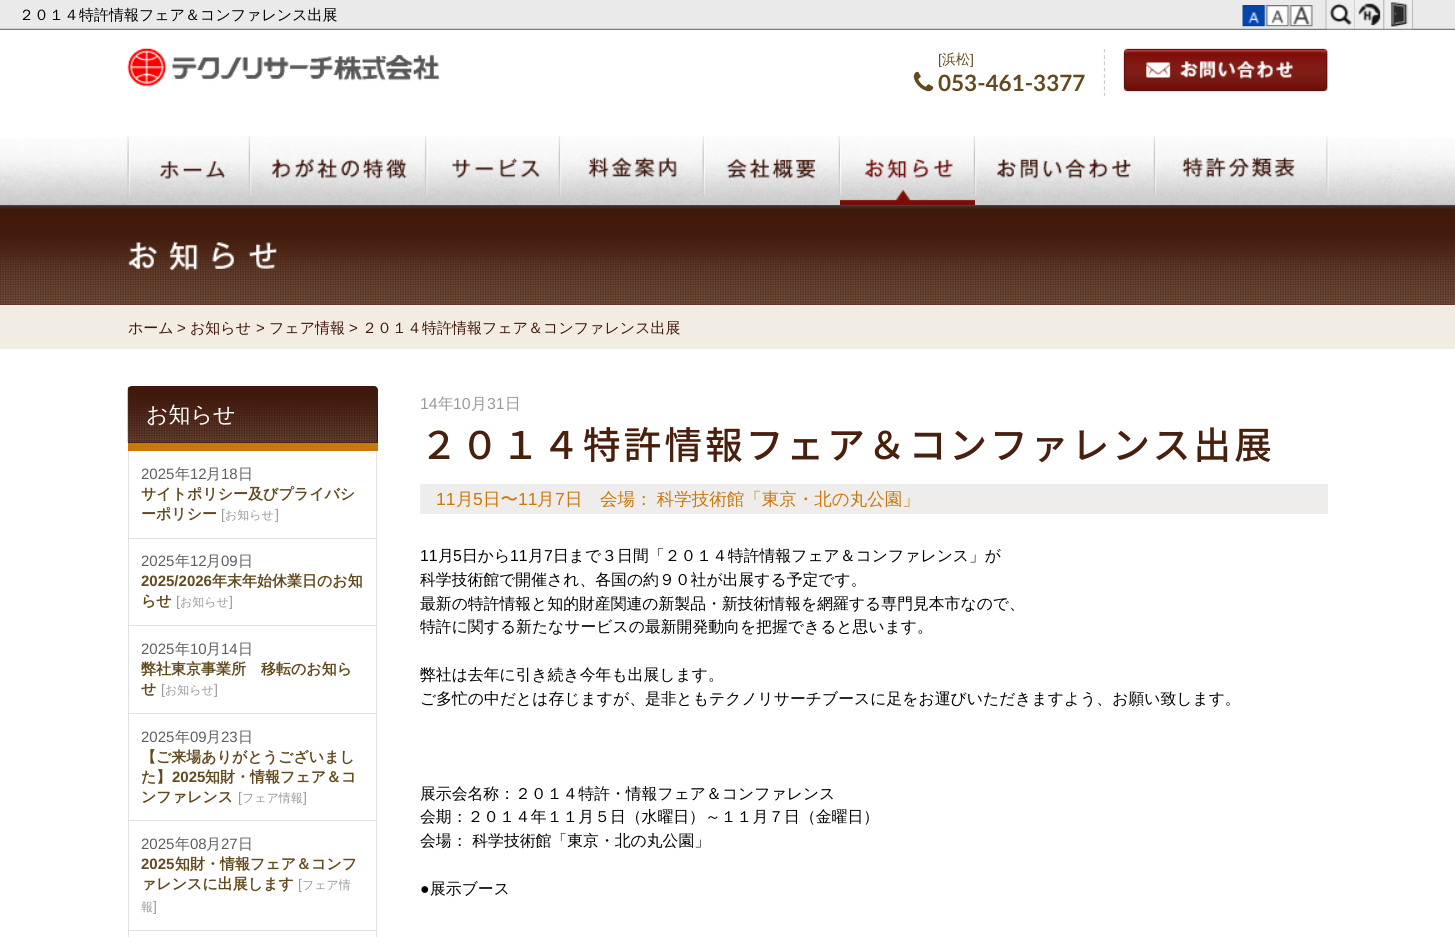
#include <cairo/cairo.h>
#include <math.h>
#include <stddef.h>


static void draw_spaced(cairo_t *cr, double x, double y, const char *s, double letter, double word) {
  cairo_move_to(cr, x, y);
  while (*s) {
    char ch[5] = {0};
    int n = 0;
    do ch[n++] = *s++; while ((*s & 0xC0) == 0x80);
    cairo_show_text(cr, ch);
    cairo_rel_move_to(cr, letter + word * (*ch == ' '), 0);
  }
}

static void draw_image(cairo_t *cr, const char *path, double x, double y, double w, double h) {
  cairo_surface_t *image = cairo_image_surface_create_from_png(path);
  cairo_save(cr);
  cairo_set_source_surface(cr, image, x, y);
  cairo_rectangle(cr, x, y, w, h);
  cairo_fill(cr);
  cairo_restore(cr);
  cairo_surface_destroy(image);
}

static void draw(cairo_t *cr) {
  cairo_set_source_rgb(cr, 1, 1, 1);
  cairo_paint(cr);
  draw_image(cr, "images/1.png", 0, 0, 1455, 30);
  draw_image(cr, "images/2.png", 1242, 5, 24, 22);
  draw_image(cr, "images/3.png", 1266, 5, 24, 22);
  draw_image(cr, "images/4.png", 1289, 5, 24, 22);
  draw_image(cr, "images/5.png", 1325, 0, 30, 30);
  draw_image(cr, "images/6.png", 1326, 0, 29, 30);
  draw_image(cr, "images/7.png", 1355, 29, 29, 1);
  draw_image(cr, "images/8.png", 1355, 0, 29, 29);
  draw_image(cr, "images/9.png", 1383, 0, 30, 30);
  draw_image(cr, "images/10.png", 1383, 0, 30, 29);
  draw_image(cr, "images/11.png", 127, 48, 313, 39);
  cairo_new_path(cr);
  cairo_move_to(cr, 1104.5, 49);
  cairo_line_to(cr, 1104.5, 96);
  cairo_set_source_rgb(cr, 205 / 255.0, 204 / 255.0, 204 / 255.0);
  cairo_set_line_width(cr, 1.2);
  cairo_set_dash(cr, (double[]){3.75, 2.5}, 2, 0);
  cairo_stroke(cr);
  draw_image(cr, "images/12.png", 913, 71, 21, 21);
  draw_image(cr, "images/13.png", 1123, 48, 205, 44);
  draw_image(cr, "images/14.png", 1123, 48, 205, 44);
  draw_image(cr, "images/18.png", 0, 205, 1455, 100);
  draw_image(cr, "images/15.png", 0, 138, 1455, 71);
  draw_image(cr, "images/16.png", 126, 136, 1203, 69);
  draw_image(cr, "images/17.png", 840, 136, 135, 69);
  draw_image(cr, "images/19.png", 128, 241, 149, 30);
  cairo_set_source_rgb(cr, 242 / 255.0, 236 / 255.0, 227 / 255.0);
  cairo_rectangle(cr, 0, 305, 1455, 44);
  cairo_fill(cr);
  cairo_set_source_rgb(cr, 202 / 255.0, 119 / 255.0, 11 / 255.0);
  cairo_rectangle(cr, 128, 443, 250, 8);
  cairo_fill(cr);
  cairo_set_source_rgb(cr, 63 / 255.0, 24 / 255.0, 10 / 255.0);
  cairo_new_path(cr);
  cairo_move_to(cr, 132, 386);
  cairo_line_to(cr, 374, 386);
  cairo_curve_to(cr, 376, 386, 378, 388, 378, 390);
  cairo_line_to(cr, 378, 443);
  cairo_line_to(cr, 128, 443);
  cairo_line_to(cr, 128, 390);
  cairo_curve_to(cr, 128, 388, 130, 386, 132, 386);
  cairo_close_path(cr);
  cairo_fill(cr);
  draw_image(cr, "images/20.png", 127, 386, 251, 57);
  cairo_set_source_rgb(cr, 225 / 255.0, 225 / 255.0, 225 / 255.0);
  cairo_rectangle(cr, 376, 451, 1, 486);
  cairo_fill(cr);
  cairo_rectangle(cr, 128, 451, 1, 486);
  cairo_fill(cr);
  cairo_rectangle(cr, 129, 538, 247, 1);
  cairo_fill(cr);
  cairo_rectangle(cr, 129, 625, 247, 1);
  cairo_fill(cr);
  cairo_rectangle(cr, 129, 713, 247, 1);
  cairo_fill(cr);
  cairo_rectangle(cr, 129, 820, 247, 1);
  cairo_fill(cr);
  cairo_rectangle(cr, 129, 930, 247, 1);
  cairo_fill(cr);
  cairo_set_source_rgb(cr, 238 / 255.0, 237 / 255.0, 235 / 255.0);
  cairo_rectangle(cr, 420, 484, 908, 30);
  cairo_fill(cr);
  cairo_select_font_face(cr, "WenQuanYi Zen Hei Medium", CAIRO_FONT_SLANT_NORMAL, CAIRO_FONT_WEIGHT_NORMAL);
  cairo_set_font_size(cr, 15);
  cairo_set_source_rgb(cr, 0, 0, 0);
  cairo_move_to(cr, 19, 20);
  cairo_show_text(cr, "２０１４特許情報フェア＆コンファレンス出展");
  cairo_select_font_face(cr, "Liberation Sans", CAIRO_FONT_SLANT_NORMAL, CAIRO_FONT_WEIGHT_NORMAL);
  cairo_set_font_size(cr, 14);
  cairo_set_source_rgb(cr, 99 / 255.0, 74 / 255.0, 30 / 255.0);
  cairo_move_to(cr, 938, 64);
  cairo_show_text(cr, "[");
  cairo_select_font_face(cr, "WenQuanYi Zen Hei Medium", CAIRO_FONT_SLANT_NORMAL, CAIRO_FONT_WEIGHT_NORMAL);
  cairo_move_to(cr, 942, 64);
  cairo_show_text(cr, "浜松");
  cairo_select_font_face(cr, "Liberation Sans", CAIRO_FONT_SLANT_NORMAL, CAIRO_FONT_WEIGHT_NORMAL);
  cairo_move_to(cr, 970, 64);
  cairo_show_text(cr, "]");
  cairo_select_font_face(cr, "Lato", CAIRO_FONT_SLANT_NORMAL, CAIRO_FONT_WEIGHT_BOLD);
  cairo_set_font_size(cr, 22.5);
  cairo_move_to(cr, 938, 91);
  cairo_show_text(cr, "053-461-3377");
  cairo_select_font_face(cr, "WenQuanYi Zen Hei Medium", CAIRO_FONT_SLANT_NORMAL, CAIRO_FONT_WEIGHT_NORMAL);
  cairo_set_font_size(cr, 15);
  cairo_set_source_rgb(cr, 63 / 255.0, 24 / 255.0, 10 / 255.0);
  cairo_move_to(cr, 128, 333);
  cairo_show_text(cr, "ホーム");
  cairo_select_font_face(cr, "Liberation Sans", CAIRO_FONT_SLANT_NORMAL, CAIRO_FONT_WEIGHT_NORMAL);
  cairo_move_to(cr, 177, 333);
  cairo_show_text(cr, ">");
  cairo_select_font_face(cr, "WenQuanYi Zen Hei Medium", CAIRO_FONT_SLANT_NORMAL, CAIRO_FONT_WEIGHT_NORMAL);
  cairo_move_to(cr, 190, 333);
  cairo_show_text(cr, "お知らせ");
  cairo_select_font_face(cr, "Liberation Sans", CAIRO_FONT_SLANT_NORMAL, CAIRO_FONT_WEIGHT_NORMAL);
  cairo_move_to(cr, 256, 333);
  cairo_show_text(cr, ">");
  cairo_select_font_face(cr, "WenQuanYi Zen Hei Medium", CAIRO_FONT_SLANT_NORMAL, CAIRO_FONT_WEIGHT_NORMAL);
  cairo_move_to(cr, 269, 333);
  cairo_show_text(cr, "フェア情報");
  cairo_select_font_face(cr, "Liberation Sans", CAIRO_FONT_SLANT_NORMAL, CAIRO_FONT_WEIGHT_NORMAL);
  cairo_move_to(cr, 349, 333);
  cairo_show_text(cr, ">");
  cairo_select_font_face(cr, "WenQuanYi Zen Hei Medium", CAIRO_FONT_SLANT_NORMAL, CAIRO_FONT_WEIGHT_NORMAL);
  cairo_move_to(cr, 362, 333);
  cairo_show_text(cr, "２０１４特許情報フェア＆コンファレンス出展");
  cairo_set_font_size(cr, 22);
  cairo_set_source_rgb(cr, 1, 1, 1);
  cairo_move_to(cr, 146, 422);
  cairo_show_text(cr, "お知らせ");
  cairo_select_font_face(cr, "Liberation Sans", CAIRO_FONT_SLANT_NORMAL, CAIRO_FONT_WEIGHT_NORMAL);
  cairo_set_font_size(cr, 15);
  cairo_set_source_rgb(cr, 94 / 255.0, 94 / 255.0, 94 / 255.0);
  cairo_move_to(cr, 141, 479);
  cairo_show_text(cr, "2025");
  cairo_select_font_face(cr, "WenQuanYi Zen Hei Medium", CAIRO_FONT_SLANT_NORMAL, CAIRO_FONT_WEIGHT_NORMAL);
  cairo_move_to(cr, 175, 479);
  cairo_show_text(cr, "年");
  cairo_select_font_face(cr, "Liberation Sans", CAIRO_FONT_SLANT_NORMAL, CAIRO_FONT_WEIGHT_NORMAL);
  cairo_move_to(cr, 190, 479);
  cairo_show_text(cr, "12");
  cairo_select_font_face(cr, "WenQuanYi Zen Hei Medium", CAIRO_FONT_SLANT_NORMAL, CAIRO_FONT_WEIGHT_NORMAL);
  cairo_move_to(cr, 206, 479);
  cairo_show_text(cr, "月");
  cairo_select_font_face(cr, "Liberation Sans", CAIRO_FONT_SLANT_NORMAL, CAIRO_FONT_WEIGHT_NORMAL);
  cairo_move_to(cr, 221, 479);
  cairo_show_text(cr, "18");
  cairo_select_font_face(cr, "WenQuanYi Zen Hei Medium", CAIRO_FONT_SLANT_NORMAL, CAIRO_FONT_WEIGHT_NORMAL);
  cairo_move_to(cr, 238, 479);
  cairo_show_text(cr, "日");
  cairo_select_font_face(cr, "WenQuanYi Zen Hei", CAIRO_FONT_SLANT_NORMAL, CAIRO_FONT_WEIGHT_BOLD);
  cairo_set_source_rgb(cr, 99 / 255.0, 74 / 255.0, 30 / 255.0);
  cairo_move_to(cr, 141, 499);
  cairo_show_text(cr, "サイトポリシー及びプライバシ");
  cairo_move_to(cr, 141, 519);
  cairo_show_text(cr, "ーポリシー");
  cairo_select_font_face(cr, "Liberation Sans", CAIRO_FONT_SLANT_NORMAL, CAIRO_FONT_WEIGHT_NORMAL);
  cairo_set_font_size(cr, 14);
  cairo_set_source_rgb(cr, 153 / 255.0, 153 / 255.0, 153 / 255.0);
  cairo_move_to(cr, 221, 519);
  cairo_show_text(cr, "[");
  cairo_select_font_face(cr, "WenQuanYi Zen Hei Medium", CAIRO_FONT_SLANT_NORMAL, CAIRO_FONT_WEIGHT_NORMAL);
  cairo_set_font_size(cr, 12);
  cairo_move_to(cr, 225, 519);
  cairo_show_text(cr, "お知らせ");
  cairo_select_font_face(cr, "Liberation Sans", CAIRO_FONT_SLANT_NORMAL, CAIRO_FONT_WEIGHT_NORMAL);
  cairo_set_font_size(cr, 14);
  cairo_move_to(cr, 275, 519);
  cairo_show_text(cr, "]");
  cairo_set_font_size(cr, 15);
  cairo_set_source_rgb(cr, 94 / 255.0, 94 / 255.0, 94 / 255.0);
  cairo_move_to(cr, 141, 566);
  cairo_show_text(cr, "2025");
  cairo_select_font_face(cr, "WenQuanYi Zen Hei Medium", CAIRO_FONT_SLANT_NORMAL, CAIRO_FONT_WEIGHT_NORMAL);
  cairo_move_to(cr, 175, 566);
  cairo_show_text(cr, "年");
  cairo_select_font_face(cr, "Liberation Sans", CAIRO_FONT_SLANT_NORMAL, CAIRO_FONT_WEIGHT_NORMAL);
  cairo_move_to(cr, 190, 566);
  cairo_show_text(cr, "12");
  cairo_select_font_face(cr, "WenQuanYi Zen Hei Medium", CAIRO_FONT_SLANT_NORMAL, CAIRO_FONT_WEIGHT_NORMAL);
  cairo_move_to(cr, 206, 566);
  cairo_show_text(cr, "月");
  cairo_select_font_face(cr, "Liberation Sans", CAIRO_FONT_SLANT_NORMAL, CAIRO_FONT_WEIGHT_NORMAL);
  cairo_move_to(cr, 221, 566);
  cairo_show_text(cr, "09");
  cairo_select_font_face(cr, "WenQuanYi Zen Hei Medium", CAIRO_FONT_SLANT_NORMAL, CAIRO_FONT_WEIGHT_NORMAL);
  cairo_move_to(cr, 238, 566);
  cairo_show_text(cr, "日");
  cairo_select_font_face(cr, "Liberation Sans", CAIRO_FONT_SLANT_NORMAL, CAIRO_FONT_WEIGHT_BOLD);
  cairo_set_source_rgb(cr, 99 / 255.0, 74 / 255.0, 30 / 255.0);
  cairo_move_to(cr, 141, 586);
  cairo_show_text(cr, "2025/2026");
  cairo_select_font_face(cr, "WenQuanYi Zen Hei", CAIRO_FONT_SLANT_NORMAL, CAIRO_FONT_WEIGHT_BOLD);
  cairo_move_to(cr, 212, 586);
  cairo_show_text(cr, "年末年始休業日のお知");
  cairo_move_to(cr, 141, 606);
  cairo_show_text(cr, "らせ");
  cairo_select_font_face(cr, "Liberation Sans", CAIRO_FONT_SLANT_NORMAL, CAIRO_FONT_WEIGHT_NORMAL);
  cairo_set_font_size(cr, 14);
  cairo_set_source_rgb(cr, 153 / 255.0, 153 / 255.0, 153 / 255.0);
  cairo_move_to(cr, 176, 606);
  cairo_show_text(cr, "[");
  cairo_select_font_face(cr, "WenQuanYi Zen Hei Medium", CAIRO_FONT_SLANT_NORMAL, CAIRO_FONT_WEIGHT_NORMAL);
  cairo_set_font_size(cr, 12);
  cairo_move_to(cr, 180, 606);
  cairo_show_text(cr, "お知らせ");
  cairo_select_font_face(cr, "Liberation Sans", CAIRO_FONT_SLANT_NORMAL, CAIRO_FONT_WEIGHT_NORMAL);
  cairo_set_font_size(cr, 14);
  cairo_move_to(cr, 229, 606);
  cairo_show_text(cr, "]");
  cairo_set_font_size(cr, 15);
  cairo_set_source_rgb(cr, 94 / 255.0, 94 / 255.0, 94 / 255.0);
  cairo_move_to(cr, 141, 654);
  cairo_show_text(cr, "2025");
  cairo_select_font_face(cr, "WenQuanYi Zen Hei Medium", CAIRO_FONT_SLANT_NORMAL, CAIRO_FONT_WEIGHT_NORMAL);
  cairo_move_to(cr, 175, 654);
  cairo_show_text(cr, "年");
  cairo_select_font_face(cr, "Liberation Sans", CAIRO_FONT_SLANT_NORMAL, CAIRO_FONT_WEIGHT_NORMAL);
  cairo_move_to(cr, 190, 654);
  cairo_show_text(cr, "10");
  cairo_select_font_face(cr, "WenQuanYi Zen Hei Medium", CAIRO_FONT_SLANT_NORMAL, CAIRO_FONT_WEIGHT_NORMAL);
  cairo_move_to(cr, 206, 654);
  cairo_show_text(cr, "月");
  cairo_select_font_face(cr, "Liberation Sans", CAIRO_FONT_SLANT_NORMAL, CAIRO_FONT_WEIGHT_NORMAL);
  cairo_move_to(cr, 221, 654);
  cairo_show_text(cr, "14");
  cairo_select_font_face(cr, "WenQuanYi Zen Hei Medium", CAIRO_FONT_SLANT_NORMAL, CAIRO_FONT_WEIGHT_NORMAL);
  cairo_move_to(cr, 238, 654);
  cairo_show_text(cr, "日");
  cairo_select_font_face(cr, "WenQuanYi Zen Hei", CAIRO_FONT_SLANT_NORMAL, CAIRO_FONT_WEIGHT_BOLD);
  cairo_set_source_rgb(cr, 99 / 255.0, 74 / 255.0, 30 / 255.0);
  cairo_move_to(cr, 141, 674);
  cairo_show_text(cr, "弊社東京事業所　移転のお知ら");
  cairo_move_to(cr, 141, 694);
  cairo_show_text(cr, "せ");
  cairo_select_font_face(cr, "Liberation Sans", CAIRO_FONT_SLANT_NORMAL, CAIRO_FONT_WEIGHT_NORMAL);
  cairo_set_font_size(cr, 14);
  cairo_set_source_rgb(cr, 153 / 255.0, 153 / 255.0, 153 / 255.0);
  cairo_move_to(cr, 161, 694);
  cairo_show_text(cr, "[");
  cairo_select_font_face(cr, "WenQuanYi Zen Hei Medium", CAIRO_FONT_SLANT_NORMAL, CAIRO_FONT_WEIGHT_NORMAL);
  cairo_set_font_size(cr, 12);
  cairo_move_to(cr, 165, 694);
  cairo_show_text(cr, "お知らせ");
  cairo_select_font_face(cr, "Liberation Sans", CAIRO_FONT_SLANT_NORMAL, CAIRO_FONT_WEIGHT_NORMAL);
  cairo_set_font_size(cr, 14);
  cairo_move_to(cr, 214, 694);
  cairo_show_text(cr, "]");
  cairo_set_font_size(cr, 15);
  cairo_set_source_rgb(cr, 94 / 255.0, 94 / 255.0, 94 / 255.0);
  cairo_move_to(cr, 141, 742);
  cairo_show_text(cr, "2025");
  cairo_select_font_face(cr, "WenQuanYi Zen Hei Medium", CAIRO_FONT_SLANT_NORMAL, CAIRO_FONT_WEIGHT_NORMAL);
  cairo_move_to(cr, 175, 742);
  cairo_show_text(cr, "年");
  cairo_select_font_face(cr, "Liberation Sans", CAIRO_FONT_SLANT_NORMAL, CAIRO_FONT_WEIGHT_NORMAL);
  cairo_move_to(cr, 190, 742);
  cairo_show_text(cr, "09");
  cairo_select_font_face(cr, "WenQuanYi Zen Hei Medium", CAIRO_FONT_SLANT_NORMAL, CAIRO_FONT_WEIGHT_NORMAL);
  cairo_move_to(cr, 206, 742);
  cairo_show_text(cr, "月");
  cairo_select_font_face(cr, "Liberation Sans", CAIRO_FONT_SLANT_NORMAL, CAIRO_FONT_WEIGHT_NORMAL);
  cairo_move_to(cr, 221, 742);
  cairo_show_text(cr, "23");
  cairo_select_font_face(cr, "WenQuanYi Zen Hei Medium", CAIRO_FONT_SLANT_NORMAL, CAIRO_FONT_WEIGHT_NORMAL);
  cairo_move_to(cr, 238, 742);
  cairo_show_text(cr, "日");
  cairo_select_font_face(cr, "WenQuanYi Zen Hei", CAIRO_FONT_SLANT_NORMAL, CAIRO_FONT_WEIGHT_BOLD);
  cairo_set_source_rgb(cr, 99 / 255.0, 74 / 255.0, 30 / 255.0);
  cairo_move_to(cr, 141, 762);
  cairo_show_text(cr, "【ご来場ありがとうございまし");
  cairo_move_to(cr, 141, 782);
  cairo_show_text(cr, "た】");
  cairo_select_font_face(cr, "Liberation Sans", CAIRO_FONT_SLANT_NORMAL, CAIRO_FONT_WEIGHT_BOLD);
  cairo_move_to(cr, 172, 782);
  cairo_show_text(cr, "2025");
  cairo_select_font_face(cr, "WenQuanYi Zen Hei", CAIRO_FONT_SLANT_NORMAL, CAIRO_FONT_WEIGHT_BOLD);
  cairo_move_to(cr, 205, 782);
  cairo_show_text(cr, "知財・情報フェア＆コ");
  cairo_move_to(cr, 141, 802);
  cairo_show_text(cr, "ンファレンス");
  cairo_select_font_face(cr, "Liberation Sans", CAIRO_FONT_SLANT_NORMAL, CAIRO_FONT_WEIGHT_NORMAL);
  cairo_set_font_size(cr, 14);
  cairo_set_source_rgb(cr, 153 / 255.0, 153 / 255.0, 153 / 255.0);
  cairo_move_to(cr, 238, 802);
  cairo_show_text(cr, "[");
  cairo_select_font_face(cr, "WenQuanYi Zen Hei Medium", CAIRO_FONT_SLANT_NORMAL, CAIRO_FONT_WEIGHT_NORMAL);
  cairo_set_font_size(cr, 12);
  cairo_move_to(cr, 242, 802);
  cairo_show_text(cr, "フェア情報");
  cairo_select_font_face(cr, "Liberation Sans", CAIRO_FONT_SLANT_NORMAL, CAIRO_FONT_WEIGHT_NORMAL);
  cairo_set_font_size(cr, 14);
  cairo_move_to(cr, 303, 802);
  cairo_show_text(cr, "]");
  cairo_set_font_size(cr, 15);
  cairo_set_source_rgb(cr, 94 / 255.0, 94 / 255.0, 94 / 255.0);
  cairo_move_to(cr, 141, 849);
  cairo_show_text(cr, "2025");
  cairo_select_font_face(cr, "WenQuanYi Zen Hei Medium", CAIRO_FONT_SLANT_NORMAL, CAIRO_FONT_WEIGHT_NORMAL);
  cairo_move_to(cr, 175, 849);
  cairo_show_text(cr, "年");
  cairo_select_font_face(cr, "Liberation Sans", CAIRO_FONT_SLANT_NORMAL, CAIRO_FONT_WEIGHT_NORMAL);
  cairo_move_to(cr, 190, 849);
  cairo_show_text(cr, "08");
  cairo_select_font_face(cr, "WenQuanYi Zen Hei Medium", CAIRO_FONT_SLANT_NORMAL, CAIRO_FONT_WEIGHT_NORMAL);
  cairo_move_to(cr, 206, 849);
  cairo_show_text(cr, "月");
  cairo_select_font_face(cr, "Liberation Sans", CAIRO_FONT_SLANT_NORMAL, CAIRO_FONT_WEIGHT_NORMAL);
  cairo_move_to(cr, 221, 849);
  cairo_show_text(cr, "27");
  cairo_select_font_face(cr, "WenQuanYi Zen Hei Medium", CAIRO_FONT_SLANT_NORMAL, CAIRO_FONT_WEIGHT_NORMAL);
  cairo_move_to(cr, 238, 849);
  cairo_show_text(cr, "日");
  cairo_select_font_face(cr, "Liberation Sans", CAIRO_FONT_SLANT_NORMAL, CAIRO_FONT_WEIGHT_BOLD);
  cairo_set_source_rgb(cr, 99 / 255.0, 74 / 255.0, 30 / 255.0);
  cairo_move_to(cr, 141, 869);
  cairo_show_text(cr, "2025");
  cairo_select_font_face(cr, "WenQuanYi Zen Hei", CAIRO_FONT_SLANT_NORMAL, CAIRO_FONT_WEIGHT_BOLD);
  cairo_move_to(cr, 175, 869);
  cairo_show_text(cr, "知財・情報フェア＆コンフ");
  cairo_move_to(cr, 141, 889);
  cairo_show_text(cr, "ァレンスに出展します");
  cairo_select_font_face(cr, "Liberation Sans", CAIRO_FONT_SLANT_NORMAL, CAIRO_FONT_WEIGHT_NORMAL);
  cairo_set_font_size(cr, 14);
  cairo_set_source_rgb(cr, 153 / 255.0, 153 / 255.0, 153 / 255.0);
  cairo_move_to(cr, 298, 889);
  cairo_show_text(cr, "[");
  cairo_select_font_face(cr, "WenQuanYi Zen Hei Medium", CAIRO_FONT_SLANT_NORMAL, CAIRO_FONT_WEIGHT_NORMAL);
  cairo_set_font_size(cr, 12);
  cairo_move_to(cr, 302, 889);
  cairo_show_text(cr, "フェア情");
  cairo_move_to(cr, 141, 911);
  cairo_show_text(cr, "報");
  cairo_select_font_face(cr, "Liberation Sans", CAIRO_FONT_SLANT_NORMAL, CAIRO_FONT_WEIGHT_NORMAL);
  cairo_set_font_size(cr, 14);
  cairo_move_to(cr, 153, 911);
  cairo_show_text(cr, "]");
  cairo_set_font_size(cr, 15.83);
  cairo_move_to(cr, 420, 409);
  cairo_show_text(cr, "14");
  cairo_select_font_face(cr, "WenQuanYi Zen Hei Medium", CAIRO_FONT_SLANT_NORMAL, CAIRO_FONT_WEIGHT_NORMAL);
  cairo_move_to(cr, 438, 409);
  cairo_show_text(cr, "年");
  cairo_select_font_face(cr, "Liberation Sans", CAIRO_FONT_SLANT_NORMAL, CAIRO_FONT_WEIGHT_NORMAL);
  cairo_move_to(cr, 453, 409);
  cairo_show_text(cr, "10");
  cairo_select_font_face(cr, "WenQuanYi Zen Hei Medium", CAIRO_FONT_SLANT_NORMAL, CAIRO_FONT_WEIGHT_NORMAL);
  cairo_move_to(cr, 471, 409);
  cairo_show_text(cr, "月");
  cairo_select_font_face(cr, "Liberation Sans", CAIRO_FONT_SLANT_NORMAL, CAIRO_FONT_WEIGHT_NORMAL);
  cairo_move_to(cr, 487, 409);
  cairo_show_text(cr, "31");
  cairo_select_font_face(cr, "WenQuanYi Zen Hei Medium", CAIRO_FONT_SLANT_NORMAL, CAIRO_FONT_WEIGHT_NORMAL);
  cairo_move_to(cr, 505, 409);
  cairo_show_text(cr, "日");
  cairo_select_font_face(cr, "Noto Sans CJK JP Medium", CAIRO_FONT_SLANT_NORMAL, CAIRO_FONT_WEIGHT_NORMAL);
  cairo_set_font_size(cr, 38);
  cairo_set_source_rgb(cr, 72 / 255.0, 32 / 255.0, 13 / 255.0);
  draw_spaced(cr, 420, 459, "２０１４特許情報フェア＆コンファレンス出展", 2.7, 0);
  cairo_select_font_face(cr, "Liberation Sans", CAIRO_FONT_SLANT_NORMAL, CAIRO_FONT_WEIGHT_NORMAL);
  cairo_set_font_size(cr, 17.5);
  cairo_set_source_rgb(cr, 202 / 255.0, 119 / 255.0, 11 / 255.0);
  cairo_move_to(cr, 436, 505);
  cairo_show_text(cr, "11");
  cairo_select_font_face(cr, "WenQuanYi Zen Hei Medium", CAIRO_FONT_SLANT_NORMAL, CAIRO_FONT_WEIGHT_NORMAL);
  cairo_move_to(cr, 456, 505);
  cairo_show_text(cr, "月");
  cairo_select_font_face(cr, "Liberation Sans", CAIRO_FONT_SLANT_NORMAL, CAIRO_FONT_WEIGHT_NORMAL);
  cairo_move_to(cr, 473, 505);
  cairo_show_text(cr, "5");
  cairo_select_font_face(cr, "WenQuanYi Zen Hei Medium", CAIRO_FONT_SLANT_NORMAL, CAIRO_FONT_WEIGHT_NORMAL);
  cairo_move_to(cr, 483, 505);
  cairo_show_text(cr, "日〜");
  cairo_select_font_face(cr, "Liberation Sans", CAIRO_FONT_SLANT_NORMAL, CAIRO_FONT_WEIGHT_NORMAL);
  cairo_move_to(cr, 518, 505);
  cairo_show_text(cr, "11");
  cairo_select_font_face(cr, "WenQuanYi Zen Hei Medium", CAIRO_FONT_SLANT_NORMAL, CAIRO_FONT_WEIGHT_NORMAL);
  cairo_move_to(cr, 537, 505);
  cairo_show_text(cr, "月");
  cairo_select_font_face(cr, "Liberation Sans", CAIRO_FONT_SLANT_NORMAL, CAIRO_FONT_WEIGHT_NORMAL);
  cairo_move_to(cr, 555, 505);
  cairo_show_text(cr, "7");
  cairo_select_font_face(cr, "WenQuanYi Zen Hei Medium", CAIRO_FONT_SLANT_NORMAL, CAIRO_FONT_WEIGHT_NORMAL);
  draw_spaced(cr, 565, 505, "日　会場： 科学技術館「東京・北の丸公園」", 0, -1);
  cairo_select_font_face(cr, "Liberation Sans", CAIRO_FONT_SLANT_NORMAL, CAIRO_FONT_WEIGHT_NORMAL);
  cairo_set_font_size(cr, 15.83);
  cairo_set_source_rgb(cr, 0, 0, 0);
  cairo_move_to(cr, 420, 561);
  cairo_show_text(cr, "11");
  cairo_select_font_face(cr, "WenQuanYi Zen Hei Medium", CAIRO_FONT_SLANT_NORMAL, CAIRO_FONT_WEIGHT_NORMAL);
  cairo_move_to(cr, 438, 561);
  cairo_show_text(cr, "月");
  cairo_select_font_face(cr, "Liberation Sans", CAIRO_FONT_SLANT_NORMAL, CAIRO_FONT_WEIGHT_NORMAL);
  cairo_move_to(cr, 453, 561);
  cairo_show_text(cr, "5");
  cairo_select_font_face(cr, "WenQuanYi Zen Hei Medium", CAIRO_FONT_SLANT_NORMAL, CAIRO_FONT_WEIGHT_NORMAL);
  cairo_move_to(cr, 462, 561);
  cairo_show_text(cr, "日から");
  cairo_select_font_face(cr, "Liberation Sans", CAIRO_FONT_SLANT_NORMAL, CAIRO_FONT_WEIGHT_NORMAL);
  cairo_move_to(cr, 510, 561);
  cairo_show_text(cr, "11");
  cairo_select_font_face(cr, "WenQuanYi Zen Hei Medium", CAIRO_FONT_SLANT_NORMAL, CAIRO_FONT_WEIGHT_NORMAL);
  cairo_move_to(cr, 528, 561);
  cairo_show_text(cr, "月");
  cairo_select_font_face(cr, "Liberation Sans", CAIRO_FONT_SLANT_NORMAL, CAIRO_FONT_WEIGHT_NORMAL);
  cairo_move_to(cr, 544, 561);
  cairo_show_text(cr, "7");
  cairo_select_font_face(cr, "WenQuanYi Zen Hei Medium", CAIRO_FONT_SLANT_NORMAL, CAIRO_FONT_WEIGHT_NORMAL);
  cairo_move_to(cr, 553, 561);
  cairo_show_text(cr, "日まで３日間「２０１４特許情報フェア＆コンファレンス」が");
  cairo_move_to(cr, 420, 585);
  cairo_show_text(cr, "科学技術館で開催され、各国の約９０社が出展する予定です。");
  cairo_move_to(cr, 420, 609);
  cairo_show_text(cr, "最新の特許情報と知的財産関連の新製品・新技術情報を網羅する専門見本市なので、");
  cairo_move_to(cr, 420, 632);
  cairo_show_text(cr, "特許に関する新たなサービスの最新開発動向を把握できると思います。");
  cairo_move_to(cr, 420, 680);
  cairo_show_text(cr, "弊社は去年に引き続き今年も出展します。");
  cairo_move_to(cr, 420, 704);
  cairo_show_text(cr, "ご多忙の中だとは存じますが、是非ともテクノリサーチブースに足をお運びいただきますよう、お願い致します。");
  cairo_move_to(cr, 420, 799);
  cairo_show_text(cr, "展示会名称：２０１４特許・情報フェア＆コンファレンス");
  cairo_move_to(cr, 420, 822);
  cairo_show_text(cr, "会期：２０１４年１１月５日（水曜日）～１１月７日（金曜日）");
  cairo_move_to(cr, 420, 846);
  cairo_show_text(cr, "会場： 科学技術館「東京・北の丸公園」");
  cairo_select_font_face(cr, "Liberation Sans", CAIRO_FONT_SLANT_NORMAL, CAIRO_FONT_WEIGHT_NORMAL);
  cairo_move_to(cr, 420, 894);
  cairo_show_text(cr, "●");
  cairo_select_font_face(cr, "WenQuanYi Zen Hei Medium", CAIRO_FONT_SLANT_NORMAL, CAIRO_FONT_WEIGHT_NORMAL);
  cairo_move_to(cr, 430, 894);
  cairo_show_text(cr, "展示ブース");
}

int main(void) {
  cairo_surface_t *surface = cairo_image_surface_create(CAIRO_FORMAT_RGB24, 1455, 937);
  cairo_t *cr = cairo_create(surface);
  cairo_font_options_t *options = cairo_font_options_create();
  cairo_font_options_set_hint_metrics(options, CAIRO_HINT_METRICS_OFF);
  cairo_font_options_set_hint_style(options, CAIRO_HINT_STYLE_NONE);
  cairo_set_font_options(cr, options);
  cairo_set_miter_limit(cr, 4);
  draw(cr);
  cairo_surface_write_to_png(surface, "out.png");
  cairo_font_options_destroy(options);
  cairo_destroy(cr);
  cairo_surface_destroy(surface);
  return 0;
}
